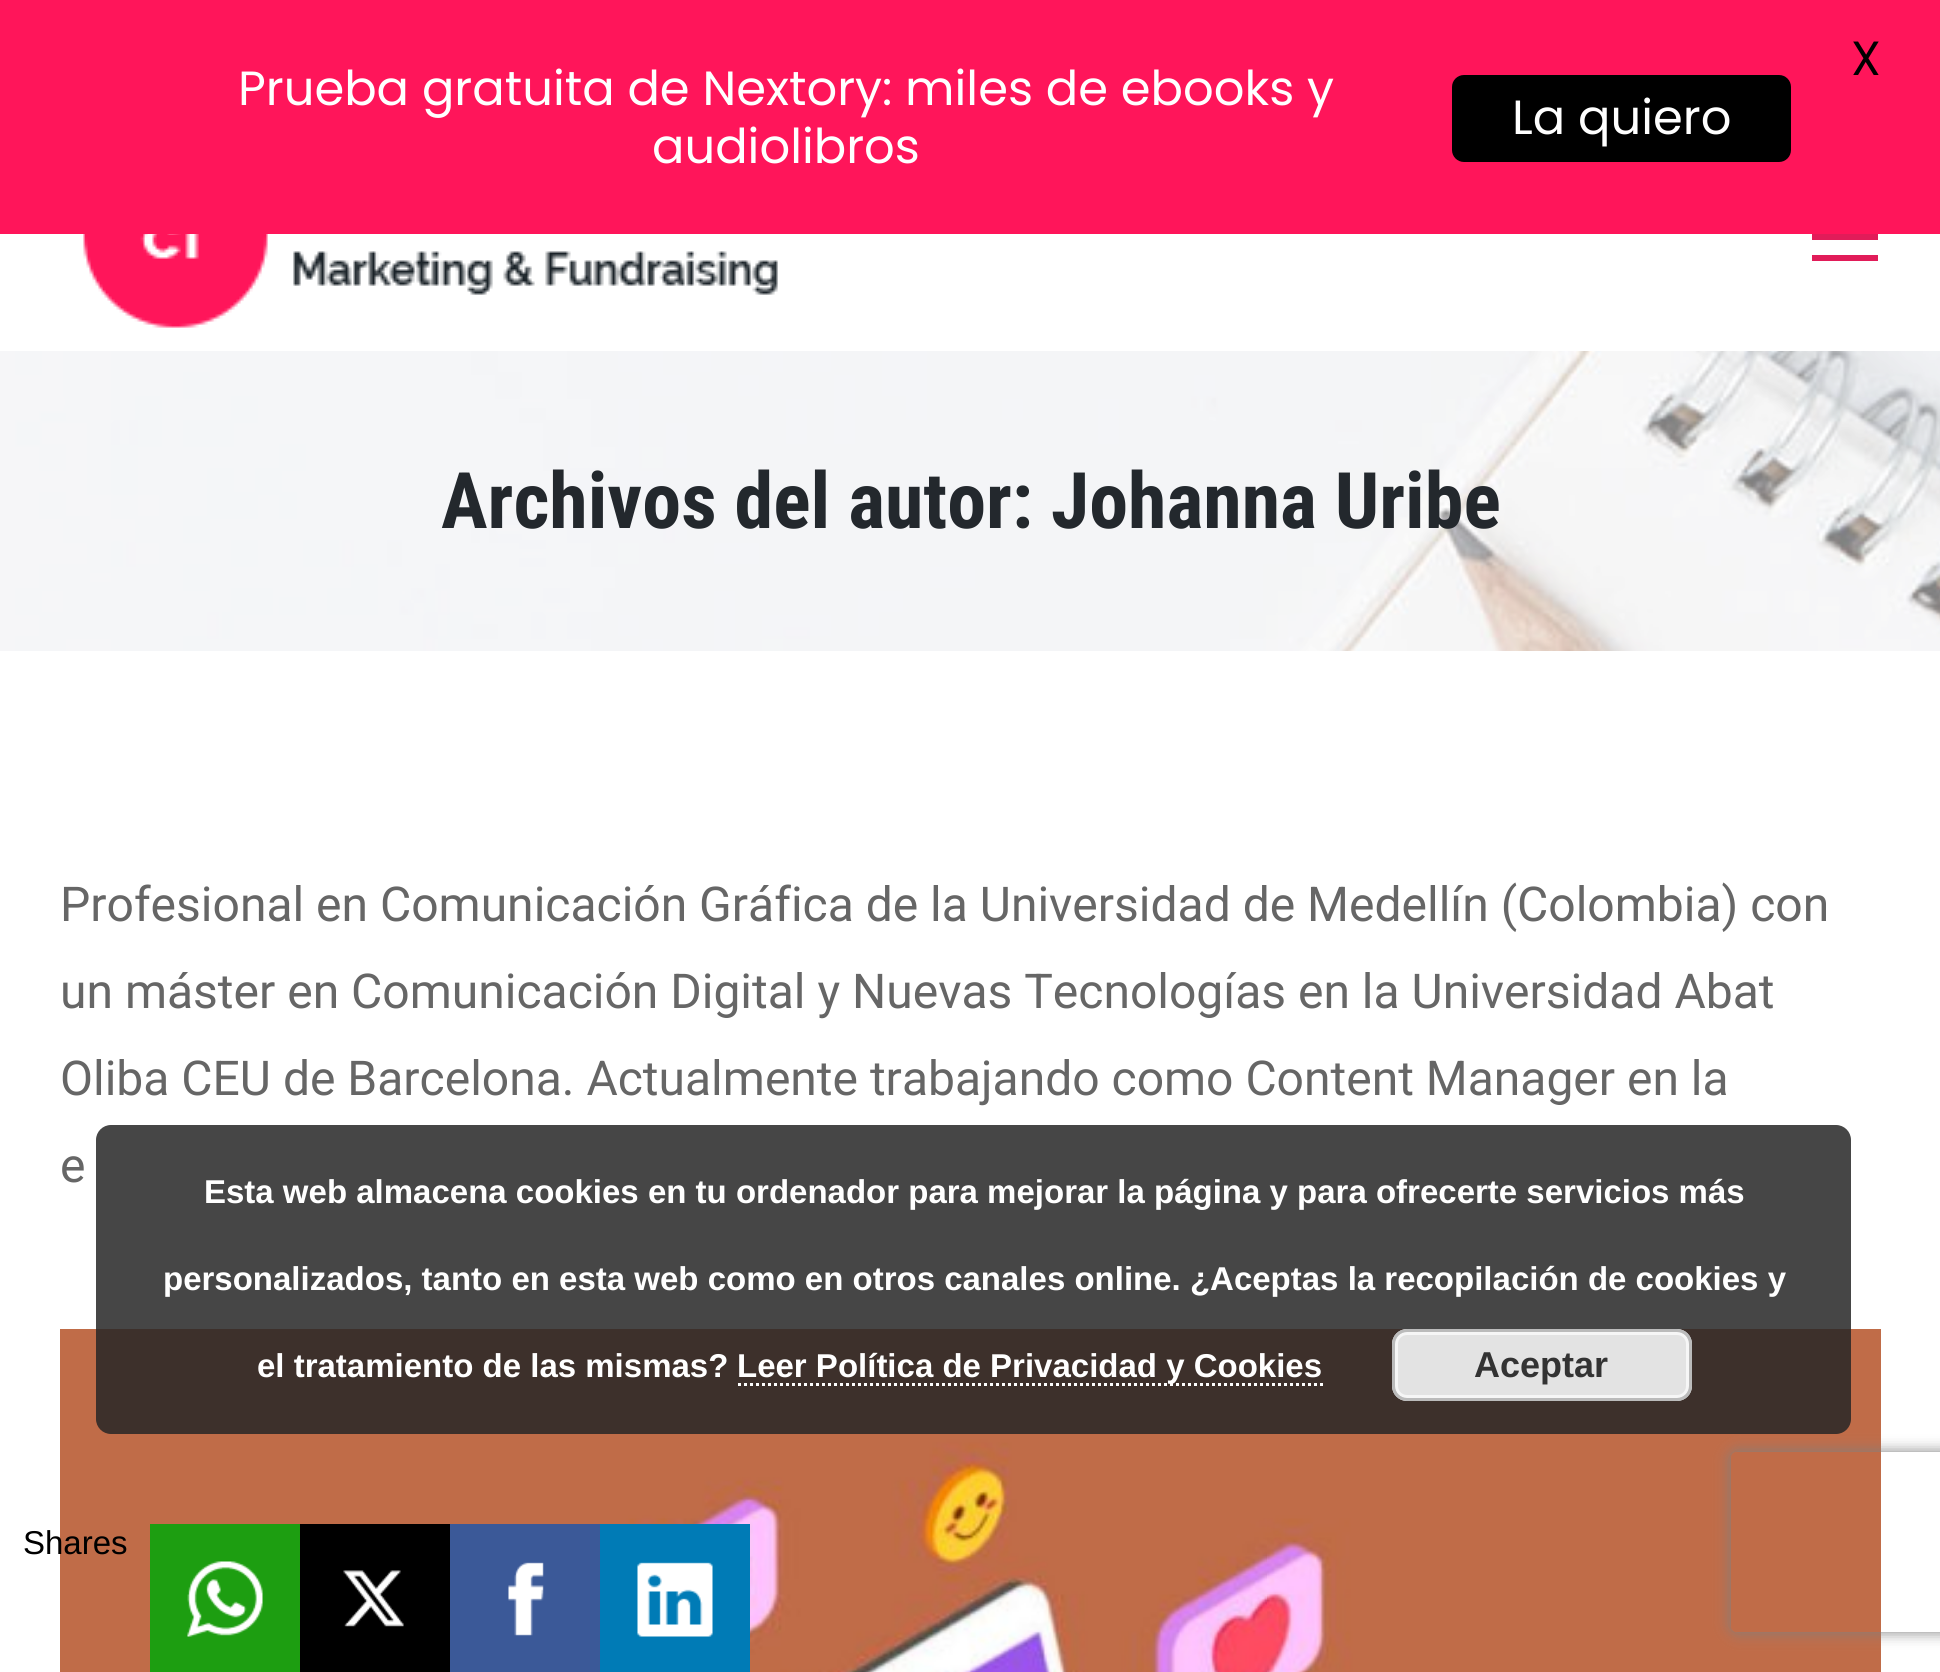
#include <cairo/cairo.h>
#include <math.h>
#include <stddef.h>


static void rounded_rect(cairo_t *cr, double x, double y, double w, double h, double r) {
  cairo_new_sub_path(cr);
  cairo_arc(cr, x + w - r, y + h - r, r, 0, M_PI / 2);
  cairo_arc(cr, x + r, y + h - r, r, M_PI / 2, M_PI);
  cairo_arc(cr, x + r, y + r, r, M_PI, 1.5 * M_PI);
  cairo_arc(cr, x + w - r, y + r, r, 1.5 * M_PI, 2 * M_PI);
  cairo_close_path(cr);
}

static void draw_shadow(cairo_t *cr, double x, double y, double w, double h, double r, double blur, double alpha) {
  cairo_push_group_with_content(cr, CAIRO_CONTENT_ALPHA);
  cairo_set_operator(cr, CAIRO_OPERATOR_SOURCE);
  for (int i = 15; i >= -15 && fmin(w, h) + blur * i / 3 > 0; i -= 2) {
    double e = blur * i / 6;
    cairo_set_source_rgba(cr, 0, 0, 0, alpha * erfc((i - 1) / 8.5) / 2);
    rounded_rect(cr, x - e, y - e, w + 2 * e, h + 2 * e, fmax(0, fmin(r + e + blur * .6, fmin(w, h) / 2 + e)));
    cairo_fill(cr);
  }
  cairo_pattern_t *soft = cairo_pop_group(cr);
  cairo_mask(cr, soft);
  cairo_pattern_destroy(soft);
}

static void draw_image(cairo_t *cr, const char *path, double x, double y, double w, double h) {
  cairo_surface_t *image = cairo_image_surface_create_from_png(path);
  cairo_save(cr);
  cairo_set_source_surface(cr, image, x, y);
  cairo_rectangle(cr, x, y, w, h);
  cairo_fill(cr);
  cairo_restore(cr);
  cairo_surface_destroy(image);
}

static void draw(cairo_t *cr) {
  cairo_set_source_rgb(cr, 1, 1, 1);
  cairo_paint(cr);
  cairo_set_source_rgb(cr, 1, 21 / 255.0, 90 / 255.0);
  cairo_rectangle(cr, 0, 0, 1940, 234);
  cairo_fill(cr);
  cairo_set_source_rgb(cr, 0, 0, 0);
  rounded_rect(cr, 1452, 75, 339, 87, 12);
  cairo_fill(cr);
  draw_image(cr, "images/1.png", 83, 234, 695, 94);
  cairo_set_source_rgb(cr, 225 / 255.0, 28 / 255.0, 89 / 255.0);
  cairo_rectangle(cr, 1812, 234, 66, 6);
  cairo_fill(cr);
  cairo_rectangle(cr, 1812, 255, 66, 6);
  cairo_fill(cr);
  draw_image(cr, "images/2.png", 0, 351, 1940, 300);
  draw_image(cr, "images/3.png", 60, 1329, 1821, 343);
  cairo_save(cr);
  cairo_set_fill_rule(cr, CAIRO_FILL_RULE_EVEN_ODD);
  cairo_new_path(cr);
  cairo_move_to(cr, 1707, 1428);
  cairo_line_to(cr, 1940, 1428);
  cairo_line_to(cr, 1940, 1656);
  cairo_line_to(cr, 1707, 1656);
  cairo_close_path(cr);
  cairo_move_to(cr, 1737, 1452);
  cairo_line_to(cr, 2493, 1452);
  cairo_curve_to(cr, 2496.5, 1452, 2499, 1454.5, 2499, 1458);
  cairo_line_to(cr, 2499, 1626);
  cairo_curve_to(cr, 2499, 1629.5, 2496.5, 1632, 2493, 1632);
  cairo_line_to(cr, 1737, 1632);
  cairo_curve_to(cr, 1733.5, 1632, 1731, 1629.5, 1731, 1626);
  cairo_line_to(cr, 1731, 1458);
  cairo_curve_to(cr, 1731, 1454.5, 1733.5, 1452, 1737, 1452);
  cairo_close_path(cr);
  cairo_clip(cr);
  cairo_set_source_rgb(cr, 128 / 255.0, 128 / 255.0, 128 / 255.0);
  draw_shadow(cr, 1731, 1452, 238, 180, 6, 7.5, 1);
  cairo_restore(cr);
  cairo_set_source_rgba(cr, 38 / 255.0, 38 / 255.0, 38 / 255.0, 0.85);
  rounded_rect(cr, 96, 1125, 1755, 309, 15);
  cairo_fill(cr);
  cairo_new_path(cr);
  cairo_move_to(cr, 738, 1384.5);
  cairo_line_to(cr, 1323, 1384.5);
  cairo_set_source_rgb(cr, 1, 1, 1);
  cairo_set_line_width(cr, 3);
  cairo_set_dash(cr, (double[]){3, 3}, 2, 0);
  cairo_stroke(cr);
  cairo_set_source_rgb(cr, 227 / 255.0, 227 / 255.0, 227 / 255.0);
  rounded_rect(cr, 1392, 1329, 300, 72, 15);
  cairo_fill(cr);
  rounded_rect(cr, 1396.5, 1333.5, 291, 63, 10.5);
  cairo_set_source_rgb(cr, 246 / 255.0, 246 / 255.0, 246 / 255.0);
  cairo_set_dash(cr, NULL, 0, 0);
  cairo_stroke(cr);
  rounded_rect(cr, 1393.5, 1330.5, 297, 69, 13.5);
  cairo_set_source_rgb(cr, 187 / 255.0, 187 / 255.0, 187 / 255.0);
  cairo_stroke(cr);
  cairo_set_source_rgb(cr, 29 / 255.0, 158 / 255.0, 17 / 255.0);
  cairo_rectangle(cr, 150, 1524, 150, 148);
  cairo_fill(cr);
  draw_image(cr, "images/4.png", 187, 1561, 76, 76);
  cairo_set_source_rgb(cr, 0, 0, 0);
  cairo_rectangle(cr, 300, 1524, 150, 148);
  cairo_fill(cr);
  draw_image(cr, "images/5.png", 343, 1570, 61, 57);
  cairo_set_source_rgb(cr, 59 / 255.0, 89 / 255.0, 152 / 255.0);
  cairo_rectangle(cr, 450, 1524, 150, 148);
  cairo_fill(cr);
  draw_image(cr, "images/6.png", 508, 1562, 36, 74);
  cairo_set_source_rgb(cr, 0, 123 / 255.0, 182 / 255.0);
  cairo_rectangle(cr, 600, 1524, 150, 148);
  cairo_fill(cr);
  draw_image(cr, "images/7.png", 637, 1562, 76, 75);
  cairo_select_font_face(cr, "Poppins", CAIRO_FONT_SLANT_NORMAL, CAIRO_FONT_WEIGHT_NORMAL);
  cairo_set_font_size(cr, 48);
  cairo_set_source_rgb(cr, 0, 0, 0);
  cairo_move_to(cr, 1851, 75);
  cairo_show_text(cr, "X");
  cairo_set_source_rgb(cr, 1, 1, 1);
  cairo_move_to(cr, 238, 105);
  cairo_show_text(cr, "Prueba gratuita de Nextory: miles de ebooks y");
  cairo_move_to(cr, 652, 163);
  cairo_show_text(cr, "audiolibros");
  cairo_move_to(cr, 1512, 134);
  cairo_show_text(cr, "La quiero");
  cairo_select_font_face(cr, "Roboto Condensed", CAIRO_FONT_SLANT_NORMAL, CAIRO_FONT_WEIGHT_BOLD);
  cairo_set_font_size(cr, 78);
  cairo_set_source_rgb(cr, 35 / 255.0, 40 / 255.0, 45 / 255.0);
  cairo_move_to(cr, 441, 528);
  cairo_show_text(cr, "Archivos del autor: Johanna Uribe");
  cairo_select_font_face(cr, "Roboto", CAIRO_FONT_SLANT_NORMAL, CAIRO_FONT_WEIGHT_NORMAL);
  cairo_set_font_size(cr, 48);
  cairo_set_source_rgb(cr, 102 / 255.0, 102 / 255.0, 102 / 255.0);
  cairo_move_to(cr, 60, 921);
  cairo_show_text(cr, "Profesional en Comunicación Gráfica de la Universidad de Medellín (Colombia) con");
  cairo_move_to(cr, 60, 1008);
  cairo_show_text(cr, "un máster en Comunicación Digital y Nuevas Tecnologías en la Universidad Abat");
  cairo_move_to(cr, 60, 1095);
  cairo_show_text(cr, "Oliba CEU de Barcelona. Actualmente trabajando como Content Manager en la");
  cairo_move_to(cr, 60, 1182);
  cairo_show_text(cr, "e");
  cairo_select_font_face(cr, "Liberation Sans", CAIRO_FONT_SLANT_NORMAL, CAIRO_FONT_WEIGHT_BOLD);
  cairo_set_font_size(cr, 33);
  cairo_set_source_rgb(cr, 1, 1, 1);
  cairo_move_to(cr, 204, 1203);
  cairo_show_text(cr, "Esta web almacena cookies en tu ordenador para mejorar la página y para ofrecerte servicios más");
  cairo_move_to(cr, 163, 1290);
  cairo_show_text(cr, "personalizados, tanto en esta web como en otros canales online. ¿Aceptas la recopilación de cookies y");
  cairo_move_to(cr, 257, 1377);
  cairo_show_text(cr, "el tratamiento de las mismas?");
  cairo_move_to(cr, 737, 1377);
  cairo_show_text(cr, "Leer Política de Privacidad y Cookies");
  cairo_set_font_size(cr, 36);
  cairo_set_source_rgb(cr, 51 / 255.0, 51 / 255.0, 51 / 255.0);
  cairo_move_to(cr, 1474, 1377);
  cairo_show_text(cr, "Aceptar");
  cairo_select_font_face(cr, "Liberation Sans", CAIRO_FONT_SLANT_NORMAL, CAIRO_FONT_WEIGHT_NORMAL);
  cairo_set_font_size(cr, 33);
  cairo_set_source_rgb(cr, 0, 0, 0);
  cairo_move_to(cr, 23, 1554);
  cairo_show_text(cr, "Shares");
}

int main(void) {
  cairo_surface_t *surface = cairo_image_surface_create(CAIRO_FORMAT_RGB24, 1940, 1672);
  cairo_t *cr = cairo_create(surface);
  cairo_font_options_t *options = cairo_font_options_create();
  cairo_font_options_set_hint_metrics(options, CAIRO_HINT_METRICS_OFF);
  cairo_font_options_set_hint_style(options, CAIRO_HINT_STYLE_NONE);
  cairo_set_font_options(cr, options);
  cairo_set_miter_limit(cr, 4);
  draw(cr);
  cairo_surface_write_to_png(surface, "out.png");
  cairo_font_options_destroy(options);
  cairo_destroy(cr);
  cairo_surface_destroy(surface);
  return 0;
}
